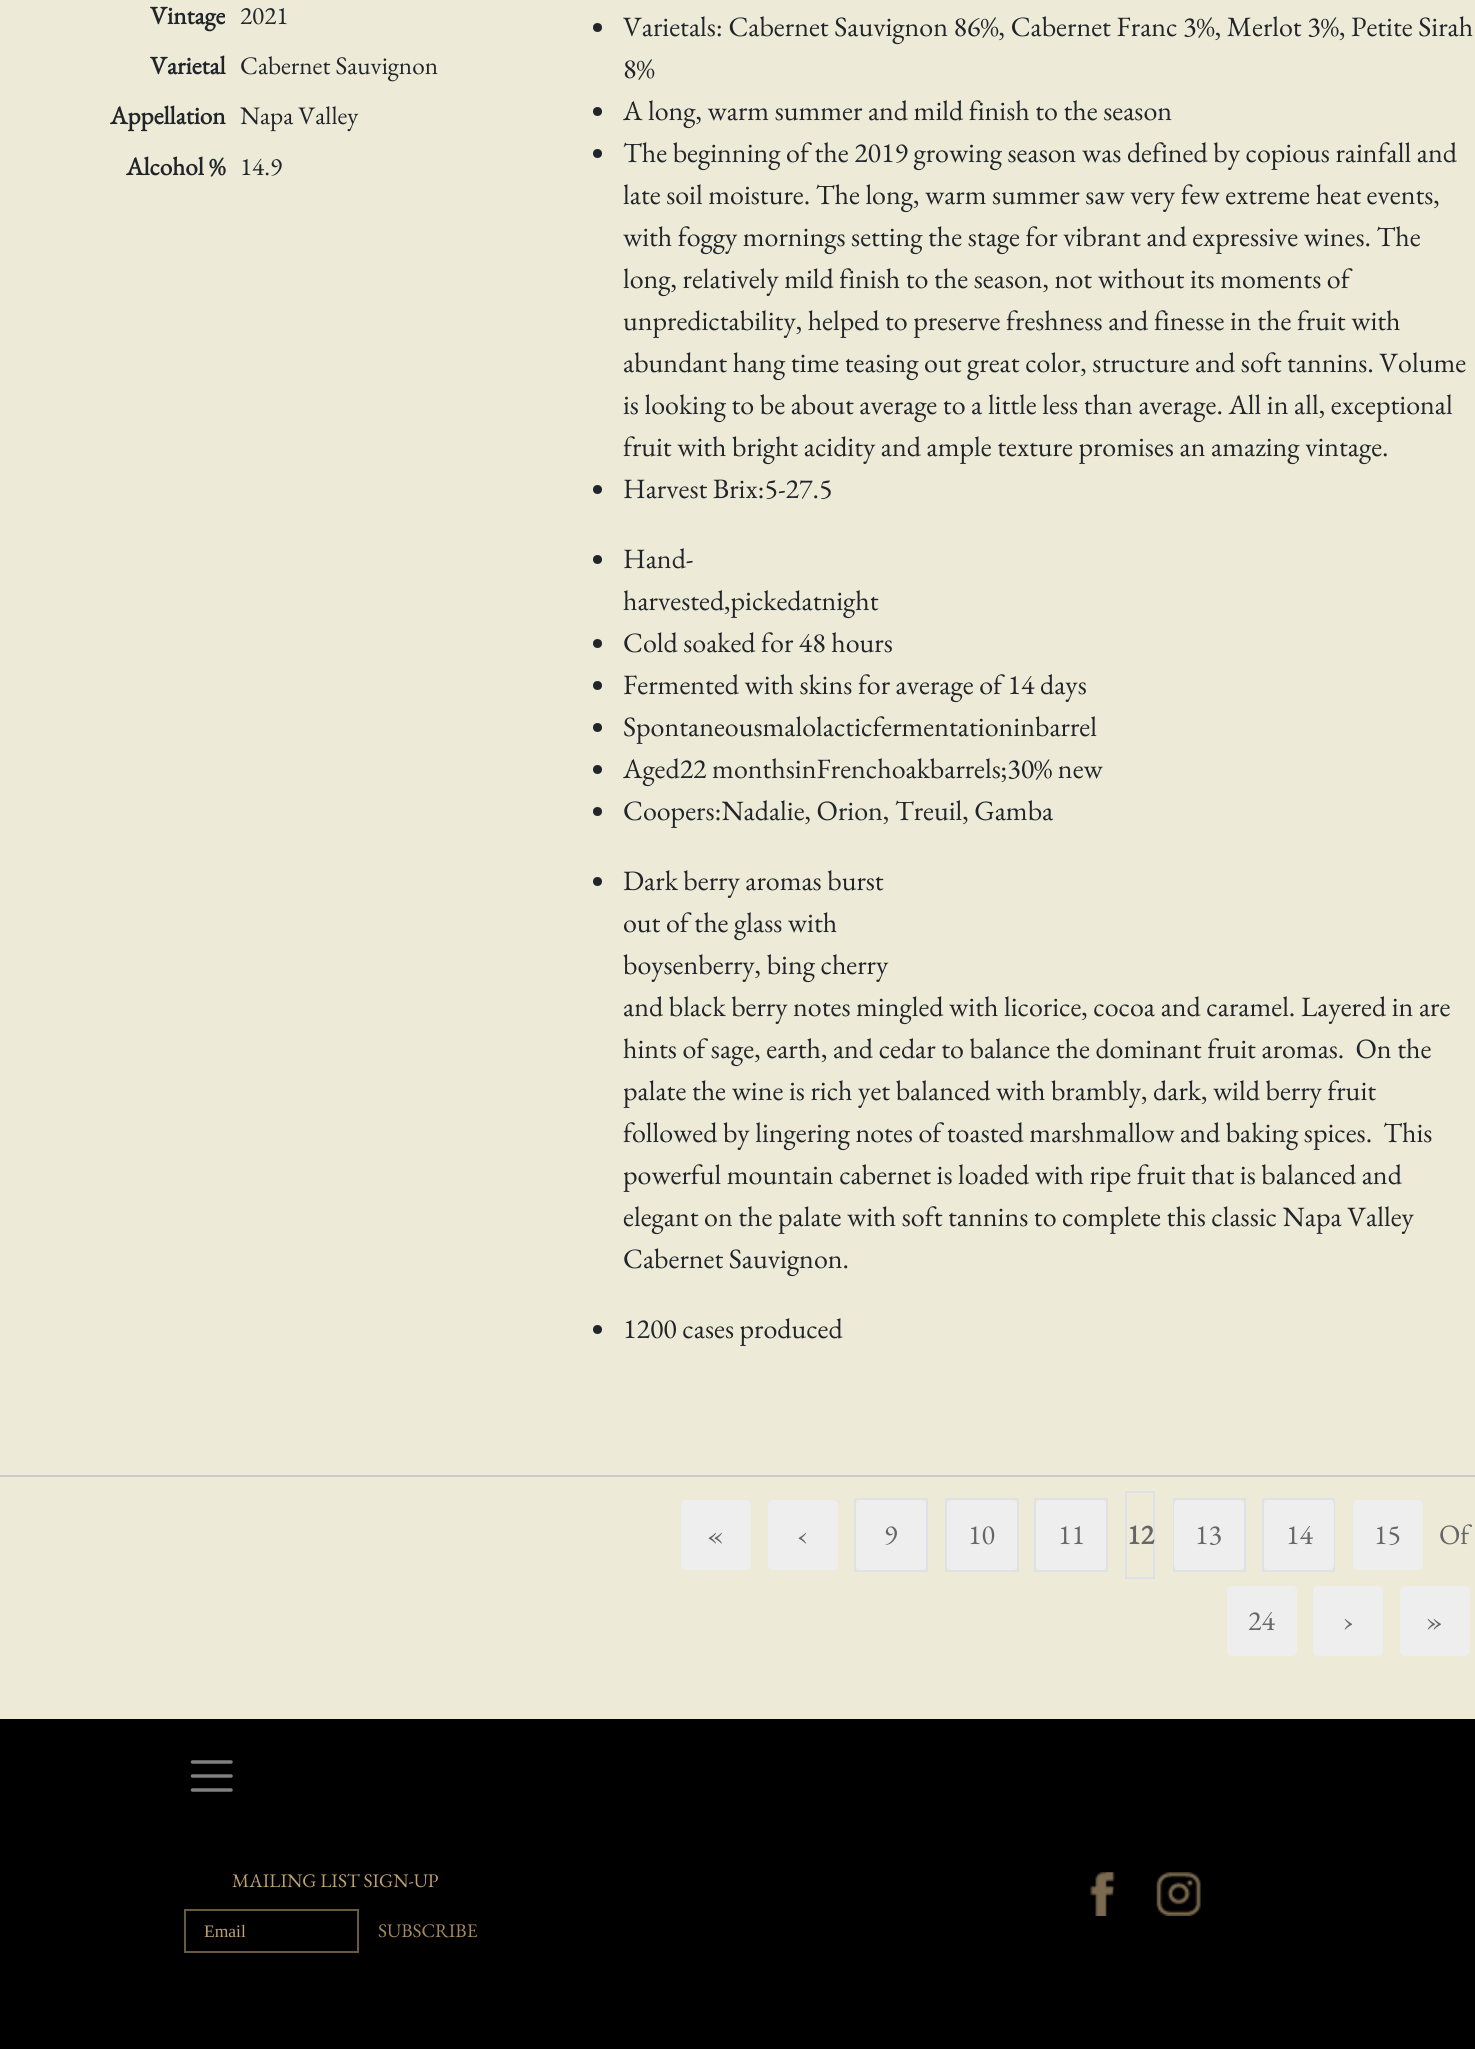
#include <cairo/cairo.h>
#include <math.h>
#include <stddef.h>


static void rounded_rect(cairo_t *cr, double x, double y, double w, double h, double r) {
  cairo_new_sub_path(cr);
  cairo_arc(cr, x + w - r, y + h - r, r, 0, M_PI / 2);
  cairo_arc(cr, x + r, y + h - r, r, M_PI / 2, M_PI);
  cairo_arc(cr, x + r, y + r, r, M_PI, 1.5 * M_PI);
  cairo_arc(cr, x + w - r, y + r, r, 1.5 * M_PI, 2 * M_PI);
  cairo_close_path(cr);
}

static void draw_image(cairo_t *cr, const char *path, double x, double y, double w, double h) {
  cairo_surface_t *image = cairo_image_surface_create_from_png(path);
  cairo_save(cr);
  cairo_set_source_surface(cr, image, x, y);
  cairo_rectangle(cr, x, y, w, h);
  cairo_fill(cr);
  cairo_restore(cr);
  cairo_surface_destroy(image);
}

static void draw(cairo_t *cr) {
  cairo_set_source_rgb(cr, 237 / 255.0, 235 / 255.0, 216 / 255.0);
  cairo_paint(cr);
  cairo_set_source_rgb(cr, 33 / 255.0, 37 / 255.0, 41 / 255.0);
  cairo_arc(cr, 597.5, 27.5, 4.5, 0, 2 * M_PI);
  cairo_fill(cr);
  cairo_arc(cr, 597.5, 111.5, 4.5, 0, 2 * M_PI);
  cairo_fill(cr);
  cairo_arc(cr, 597.5, 153.5, 4.5, 0, 2 * M_PI);
  cairo_fill(cr);
  cairo_arc(cr, 597.5, 489.5, 4.5, 0, 2 * M_PI);
  cairo_fill(cr);
  cairo_arc(cr, 597.5, 559.5, 4.5, 0, 2 * M_PI);
  cairo_fill(cr);
  cairo_arc(cr, 597.5, 643.5, 4.5, 0, 2 * M_PI);
  cairo_fill(cr);
  cairo_arc(cr, 597.5, 685.5, 4.5, 0, 2 * M_PI);
  cairo_fill(cr);
  cairo_arc(cr, 597.5, 727.5, 4.5, 0, 2 * M_PI);
  cairo_fill(cr);
  cairo_arc(cr, 597.5, 769.5, 4.5, 0, 2 * M_PI);
  cairo_fill(cr);
  cairo_arc(cr, 597.5, 811.5, 4.5, 0, 2 * M_PI);
  cairo_fill(cr);
  cairo_arc(cr, 597.5, 881.5, 4.5, 0, 2 * M_PI);
  cairo_fill(cr);
  cairo_arc(cr, 597.5, 1329.5, 4.5, 0, 2 * M_PI);
  cairo_fill(cr);
  cairo_set_source_rgb(cr, 204 / 255.0, 204 / 255.0, 204 / 255.0);
  cairo_rectangle(cr, 0, 1475, 1475, 2);
  cairo_fill(cr);
  cairo_set_source_rgb(cr, 238 / 255.0, 238 / 255.0, 238 / 255.0);
  rounded_rect(cr, 681, 1500, 70, 70, 5);
  cairo_fill(cr);
  rounded_rect(cr, 768, 1500, 70, 70, 5);
  cairo_fill(cr);
  cairo_rectangle(cr, 855, 1499, 72, 72);
  cairo_set_source_rgb(cr, 222 / 255.0, 226 / 255.0, 230 / 255.0);
  cairo_stroke(cr);
  cairo_set_source_rgb(cr, 238 / 255.0, 238 / 255.0, 238 / 255.0);
  rounded_rect(cr, 856, 1500, 70, 70, 5);
  cairo_fill(cr);
  cairo_rectangle(cr, 946, 1499, 72, 72);
  cairo_set_source_rgb(cr, 222 / 255.0, 226 / 255.0, 230 / 255.0);
  cairo_stroke(cr);
  cairo_set_source_rgb(cr, 238 / 255.0, 238 / 255.0, 238 / 255.0);
  rounded_rect(cr, 947, 1500, 70, 70, 5);
  cairo_fill(cr);
  cairo_rectangle(cr, 1035, 1499, 72, 72);
  cairo_set_source_rgb(cr, 222 / 255.0, 226 / 255.0, 230 / 255.0);
  cairo_stroke(cr);
  cairo_set_source_rgb(cr, 238 / 255.0, 238 / 255.0, 238 / 255.0);
  rounded_rect(cr, 1036, 1500, 70, 70, 5);
  cairo_fill(cr);
  cairo_rectangle(cr, 1126, 1492, 28, 86);
  cairo_set_source_rgb(cr, 222 / 255.0, 226 / 255.0, 230 / 255.0);
  cairo_stroke(cr);
  cairo_rectangle(cr, 1174, 1499, 71, 72);
  cairo_stroke(cr);
  cairo_set_source_rgb(cr, 238 / 255.0, 238 / 255.0, 238 / 255.0);
  rounded_rect(cr, 1174, 1500, 70, 70, 5);
  cairo_fill(cr);
  cairo_rectangle(cr, 1263, 1499, 71, 72);
  cairo_set_source_rgb(cr, 222 / 255.0, 226 / 255.0, 230 / 255.0);
  cairo_stroke(cr);
  cairo_set_source_rgb(cr, 238 / 255.0, 238 / 255.0, 238 / 255.0);
  rounded_rect(cr, 1264, 1500, 70, 70, 5);
  cairo_fill(cr);
  rounded_rect(cr, 1353, 1500, 70, 70, 5);
  cairo_fill(cr);
  rounded_rect(cr, 1227, 1586, 70, 70, 5);
  cairo_fill(cr);
  rounded_rect(cr, 1313, 1586, 70, 70, 5);
  cairo_fill(cr);
  rounded_rect(cr, 1400, 1586, 70, 70, 5);
  cairo_fill(cr);
  cairo_set_source_rgb(cr, 0, 0, 0);
  cairo_rectangle(cr, 0, 1719, 1475, 330);
  cairo_fill(cr);
  cairo_new_path(cr);
  cairo_move_to(cr, 192.5, 1762);
  cairo_line_to(cr, 231, 1762);
  cairo_move_to(cr, 192.5, 1776);
  cairo_line_to(cr, 231, 1776);
  cairo_move_to(cr, 192.5, 1790);
  cairo_line_to(cr, 231, 1790);
  cairo_set_source_rgb(cr, 128 / 255.0, 128 / 255.0, 128 / 255.0);
  cairo_set_line_width(cr, 3.5);
  cairo_set_line_cap(cr, CAIRO_LINE_CAP_ROUND);
  cairo_stroke(cr);
  cairo_rectangle(cr, 185, 1910, 173, 42);
  cairo_set_source_rgb(cr, 105 / 255.0, 89 / 255.0, 63 / 255.0);
  cairo_set_line_width(cr, 2);
  cairo_set_line_cap(cr, CAIRO_LINE_CAP_BUTT);
  cairo_stroke(cr);
  draw_image(cr, "images/1.png", 1090, 1872, 25, 44);
  draw_image(cr, "images/2.png", 1156, 1872, 45, 44);
  cairo_select_font_face(cr, "EB Garamond", CAIRO_FONT_SLANT_NORMAL, CAIRO_FONT_WEIGHT_BOLD);
  cairo_set_font_size(cr, 25.25);
  cairo_set_source_rgb(cr, 33 / 255.0, 37 / 255.0, 41 / 255.0);
  cairo_move_to(cr, 150, 24);
  cairo_show_text(cr, "Vintage");
  cairo_select_font_face(cr, "EB Garamond", CAIRO_FONT_SLANT_NORMAL, CAIRO_FONT_WEIGHT_NORMAL);
  cairo_move_to(cr, 240, 24);
  cairo_show_text(cr, "2021");
  cairo_select_font_face(cr, "EB Garamond", CAIRO_FONT_SLANT_NORMAL, CAIRO_FONT_WEIGHT_BOLD);
  cairo_move_to(cr, 150, 74);
  cairo_show_text(cr, "Varietal");
  cairo_select_font_face(cr, "EB Garamond", CAIRO_FONT_SLANT_NORMAL, CAIRO_FONT_WEIGHT_NORMAL);
  cairo_move_to(cr, 240, 74);
  cairo_show_text(cr, "Cabernet Sauvignon");
  cairo_select_font_face(cr, "EB Garamond", CAIRO_FONT_SLANT_NORMAL, CAIRO_FONT_WEIGHT_BOLD);
  cairo_move_to(cr, 110, 124);
  cairo_show_text(cr, "Appellation");
  cairo_select_font_face(cr, "EB Garamond", CAIRO_FONT_SLANT_NORMAL, CAIRO_FONT_WEIGHT_NORMAL);
  cairo_move_to(cr, 240, 124);
  cairo_show_text(cr, "Napa Valley");
  cairo_select_font_face(cr, "EB Garamond", CAIRO_FONT_SLANT_NORMAL, CAIRO_FONT_WEIGHT_BOLD);
  cairo_move_to(cr, 126, 175);
  cairo_show_text(cr, "Alcohol %");
  cairo_select_font_face(cr, "EB Garamond", CAIRO_FONT_SLANT_NORMAL, CAIRO_FONT_WEIGHT_NORMAL);
  cairo_move_to(cr, 240, 175);
  cairo_show_text(cr, "14.9");
  cairo_set_font_size(cr, 28);
  cairo_move_to(cr, 623, 36);
  cairo_show_text(cr, "Varietals: Cabernet Sauvignon 86%, Cabernet Franc 3%, Merlot 3%, Petite Sirah");
  cairo_move_to(cr, 623, 78);
  cairo_show_text(cr, "8%");
  cairo_move_to(cr, 623, 120);
  cairo_show_text(cr, "A long, warm summer and mild finish to the season");
  cairo_move_to(cr, 623, 162);
  cairo_show_text(cr, "The beginning of the 2019 growing season was defined by copious rainfall and");
  cairo_move_to(cr, 623, 204);
  cairo_show_text(cr, "late soil moisture. The long, warm summer saw very few extreme heat events,");
  cairo_move_to(cr, 623, 246);
  cairo_show_text(cr, "with foggy mornings setting the stage for vibrant and expressive wines. The");
  cairo_move_to(cr, 623, 288);
  cairo_show_text(cr, "long, relatively mild finish to the season, not without its moments of");
  cairo_move_to(cr, 623, 330);
  cairo_show_text(cr, "unpredictability, helped to preserve freshness and finesse in the fruit with");
  cairo_move_to(cr, 623, 372);
  cairo_show_text(cr, "abundant hang time teasing out great color, structure and soft tannins. Volume");
  cairo_move_to(cr, 623, 414);
  cairo_show_text(cr, "is looking to be about average to a little less than average. All in all, exceptional");
  cairo_move_to(cr, 623, 456);
  cairo_show_text(cr, "fruit with bright acidity and ample texture promises an amazing vintage.");
  cairo_move_to(cr, 623, 498);
  cairo_show_text(cr, "Harvest Brix:5-27.5");
  cairo_move_to(cr, 623, 568);
  cairo_show_text(cr, "Hand-");
  cairo_move_to(cr, 623, 610);
  cairo_show_text(cr, "harvested,pickedatnight");
  cairo_move_to(cr, 623, 652);
  cairo_show_text(cr, "Cold soaked for 48 hours");
  cairo_move_to(cr, 623, 694);
  cairo_show_text(cr, "Fermented with skins for average of 14 days");
  cairo_move_to(cr, 623, 736);
  cairo_show_text(cr, "Spontaneousmalolacticfermentationinbarrel");
  cairo_move_to(cr, 623, 778);
  cairo_show_text(cr, "Aged22 monthsinFrenchoakbarrels;30% new");
  cairo_move_to(cr, 623, 820);
  cairo_show_text(cr, "Coopers:Nadalie, Orion, Treuil, Gamba");
  cairo_move_to(cr, 623, 890);
  cairo_show_text(cr, "Dark berry aromas burst");
  cairo_move_to(cr, 623, 932);
  cairo_show_text(cr, "out of the glass with");
  cairo_move_to(cr, 623, 974);
  cairo_show_text(cr, "boysenberry, bing cherry");
  cairo_move_to(cr, 623, 1016);
  cairo_show_text(cr, "and black berry notes mingled with licorice, cocoa and caramel. Layered in are");
  cairo_move_to(cr, 623, 1058);
  cairo_show_text(cr, "hints of sage, earth, and cedar to balance the dominant fruit aromas.  On the");
  cairo_move_to(cr, 623, 1100);
  cairo_show_text(cr, "palate the wine is rich yet balanced with brambly, dark, wild berry fruit");
  cairo_move_to(cr, 623, 1142);
  cairo_show_text(cr, "followed by lingering notes of toasted marshmallow and baking spices.  This");
  cairo_move_to(cr, 623, 1184);
  cairo_show_text(cr, "powerful mountain cabernet is loaded with ripe fruit that is balanced and");
  cairo_move_to(cr, 623, 1226);
  cairo_show_text(cr, "elegant on the palate with soft tannins to complete this classic Napa Valley");
  cairo_move_to(cr, 623, 1268);
  cairo_show_text(cr, "Cabernet Sauvignon.");
  cairo_move_to(cr, 623, 1338);
  cairo_show_text(cr, "1200 cases produced");
  cairo_set_source_rgb(cr, 102 / 255.0, 102 / 255.0, 102 / 255.0);
  cairo_move_to(cr, 707, 1544);
  cairo_show_text(cr, "«");
  cairo_move_to(cr, 797, 1544);
  cairo_show_text(cr, "‹");
  cairo_move_to(cr, 884, 1544);
  cairo_show_text(cr, "9");
  cairo_move_to(cr, 968, 1544);
  cairo_show_text(cr, "10");
  cairo_move_to(cr, 1058, 1544);
  cairo_show_text(cr, "11");
  cairo_select_font_face(cr, "EB Garamond", CAIRO_FONT_SLANT_NORMAL, CAIRO_FONT_WEIGHT_BOLD);
  cairo_move_to(cr, 1127, 1544);
  cairo_show_text(cr, "12");
  cairo_select_font_face(cr, "EB Garamond", CAIRO_FONT_SLANT_NORMAL, CAIRO_FONT_WEIGHT_NORMAL);
  cairo_move_to(cr, 1195, 1544);
  cairo_show_text(cr, "13");
  cairo_move_to(cr, 1286, 1544);
  cairo_show_text(cr, "14");
  cairo_move_to(cr, 1374, 1544);
  cairo_show_text(cr, "15");
  cairo_move_to(cr, 1439, 1544);
  cairo_show_text(cr, "Of");
  cairo_move_to(cr, 1248, 1630);
  cairo_show_text(cr, "24");
  cairo_move_to(cr, 1343, 1630);
  cairo_show_text(cr, "›");
  cairo_move_to(cr, 1426, 1630);
  cairo_show_text(cr, "»");
  cairo_set_font_size(cr, 19.25);
  cairo_set_source_rgb(cr, 191 / 255.0, 161 / 255.0, 113 / 255.0);
  cairo_move_to(cr, 232, 1887);
  cairo_show_text(cr, "MAILING LIST SIGN-UP");
  cairo_select_font_face(cr, "Liberation Serif", CAIRO_FONT_SLANT_NORMAL, CAIRO_FONT_WEIGHT_NORMAL);
  cairo_set_font_size(cr, 17.5);
  cairo_move_to(cr, 204, 1937);
  cairo_show_text(cr, "Email");
  cairo_select_font_face(cr, "EB Garamond", CAIRO_FONT_SLANT_NORMAL, CAIRO_FONT_WEIGHT_NORMAL);
  cairo_set_font_size(cr, 19.25);
  cairo_set_source_rgb(cr, 164 / 255.0, 137 / 255.0, 93 / 255.0);
  cairo_move_to(cr, 378, 1937);
  cairo_show_text(cr, "SUBSCRIBE");
}

int main(void) {
  cairo_surface_t *surface = cairo_image_surface_create(CAIRO_FORMAT_RGB24, 1475, 2049);
  cairo_t *cr = cairo_create(surface);
  cairo_font_options_t *options = cairo_font_options_create();
  cairo_font_options_set_hint_metrics(options, CAIRO_HINT_METRICS_OFF);
  cairo_font_options_set_hint_style(options, CAIRO_HINT_STYLE_NONE);
  cairo_set_font_options(cr, options);
  cairo_set_miter_limit(cr, 4);
  draw(cr);
  cairo_surface_write_to_png(surface, "out.png");
  cairo_font_options_destroy(options);
  cairo_destroy(cr);
  cairo_surface_destroy(surface);
  return 0;
}
